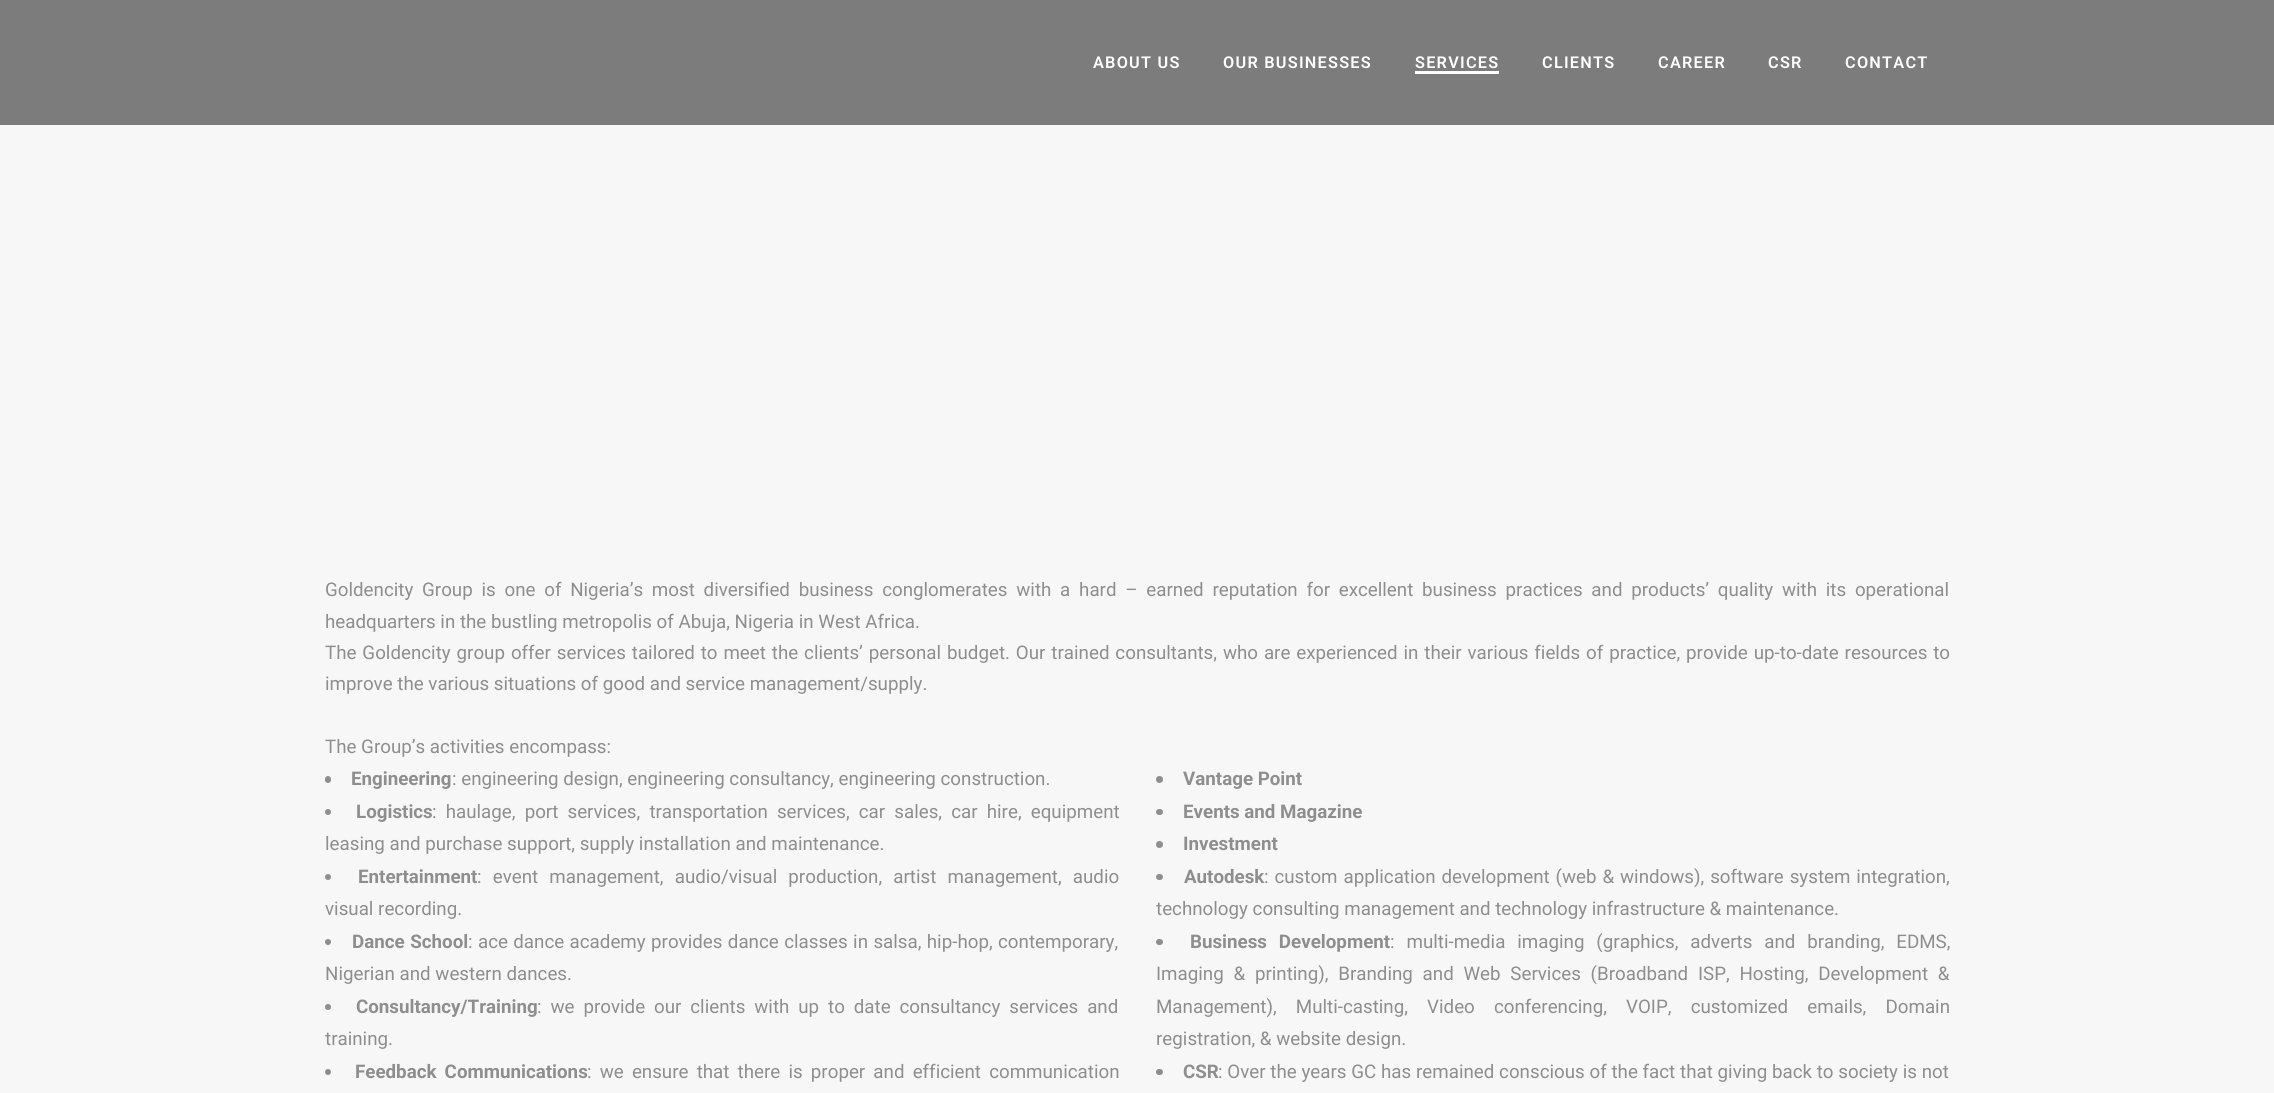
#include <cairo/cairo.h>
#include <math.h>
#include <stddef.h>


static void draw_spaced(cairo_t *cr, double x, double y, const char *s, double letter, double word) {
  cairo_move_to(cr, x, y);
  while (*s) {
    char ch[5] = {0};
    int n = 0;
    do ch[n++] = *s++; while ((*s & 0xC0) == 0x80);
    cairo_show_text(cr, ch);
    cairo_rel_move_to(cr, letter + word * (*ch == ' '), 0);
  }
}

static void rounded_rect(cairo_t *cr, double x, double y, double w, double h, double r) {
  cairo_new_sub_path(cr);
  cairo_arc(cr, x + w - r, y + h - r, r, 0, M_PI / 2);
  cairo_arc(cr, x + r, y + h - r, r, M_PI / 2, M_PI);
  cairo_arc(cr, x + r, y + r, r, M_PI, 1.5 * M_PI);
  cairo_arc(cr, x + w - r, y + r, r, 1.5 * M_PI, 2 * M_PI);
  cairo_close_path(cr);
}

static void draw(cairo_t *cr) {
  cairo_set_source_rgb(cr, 247 / 255.0, 247 / 255.0, 247 / 255.0);
  cairo_paint(cr);
  cairo_set_source_rgb(cr, 124 / 255.0, 124 / 255.0, 124 / 255.0);
  cairo_rectangle(cr, 0, 0, 2274, 125);
  cairo_fill(cr);
  cairo_set_source_rgb(cr, 1, 1, 1);
  cairo_rectangle(cr, 1415, 71, 84, 3);
  cairo_fill(cr);
  cairo_set_source_rgb(cr, 142 / 255.0, 142 / 255.0, 142 / 255.0);
  rounded_rect(cr, 325, 776, 6, 7, 3);
  cairo_fill(cr);
  cairo_arc(cr, 328, 812, 3, 0, 2 * M_PI);
  cairo_fill(cr);
  cairo_arc(cr, 328, 877, 3, 0, 2 * M_PI);
  cairo_fill(cr);
  cairo_arc(cr, 328, 942, 3, 0, 2 * M_PI);
  cairo_fill(cr);
  cairo_arc(cr, 328, 1007, 3, 0, 2 * M_PI);
  cairo_fill(cr);
  cairo_arc(cr, 328, 1072, 3, 0, 2 * M_PI);
  cairo_fill(cr);
  cairo_arc(cr, 1159.5, 779.5, 3.5, 0, 2 * M_PI);
  cairo_fill(cr);
  rounded_rect(cr, 1156, 809, 7, 6, 3);
  cairo_fill(cr);
  cairo_arc(cr, 1159.5, 844.5, 3.5, 0, 2 * M_PI);
  cairo_fill(cr);
  rounded_rect(cr, 1156, 874, 7, 6, 3);
  cairo_fill(cr);
  rounded_rect(cr, 1156, 939, 7, 6, 3);
  cairo_fill(cr);
  rounded_rect(cr, 1156, 1069, 7, 6, 3);
  cairo_fill(cr);
  cairo_select_font_face(cr, "Roboto SemiBold", CAIRO_FONT_SLANT_NORMAL, CAIRO_FONT_WEIGHT_NORMAL);
  cairo_set_font_size(cr, 16.25);
  cairo_set_source_rgb(cr, 1, 1, 1);
  draw_spaced(cr, 1093, 68, "ABOUT US", 1.25, 0);
  draw_spaced(cr, 1223, 68, "OUR BUSINESSES", 1.25, 0);
  draw_spaced(cr, 1415, 68, "SERVICES", 1.25, 0);
  draw_spaced(cr, 1542, 68, "CLIENTS", 1.25, 0);
  draw_spaced(cr, 1658, 68, "CAREER", 1.25, 0);
  draw_spaced(cr, 1768, 68, "CSR", 1.25, 0);
  draw_spaced(cr, 1845, 68, "CONTACT", 1.25, 0);
  cairo_select_font_face(cr, "Roboto", CAIRO_FONT_SLANT_NORMAL, CAIRO_FONT_WEIGHT_NORMAL);
  cairo_set_font_size(cr, 18.75);
  cairo_set_source_rgb(cr, 142 / 255.0, 142 / 255.0, 142 / 255.0);
  draw_spaced(cr, 325, 596, "Goldencity Group is one of Nigeria’s most diversified business conglomerates with a hard – earned reputation for excellent business practices and products’ quality with its operational", 0, 4.1);
  cairo_move_to(cr, 325, 628);
  cairo_show_text(cr, "headquarters in the bustling metropolis of Abuja, Nigeria in West Africa.");
  draw_spaced(cr, 325, 659, "The Goldencity group offer services tailored to meet the clients’ personal budget. Our trained consultants, who are experienced in their various fields of practice, provide up-to-date resources to", 0, 1.25);
  cairo_move_to(cr, 325, 690);
  cairo_show_text(cr, "improve the various situations of good and service management/supply.");
  cairo_move_to(cr, 325, 753);
  cairo_show_text(cr, "The Group’s activities encompass:");
  cairo_select_font_face(cr, "Roboto", CAIRO_FONT_SLANT_NORMAL, CAIRO_FONT_WEIGHT_BOLD);
  cairo_move_to(cr, 351, 785);
  cairo_show_text(cr, "Engineering");
  cairo_select_font_face(cr, "Roboto", CAIRO_FONT_SLANT_NORMAL, CAIRO_FONT_WEIGHT_NORMAL);
  cairo_move_to(cr, 452, 785);
  cairo_show_text(cr, ": engineering design, engineering consultancy, engineering construction.");
  cairo_select_font_face(cr, "Roboto", CAIRO_FONT_SLANT_NORMAL, CAIRO_FONT_WEIGHT_BOLD);
  cairo_move_to(cr, 356, 818);
  cairo_show_text(cr, "Logistics");
  cairo_select_font_face(cr, "Roboto", CAIRO_FONT_SLANT_NORMAL, CAIRO_FONT_WEIGHT_NORMAL);
  draw_spaced(cr, 432, 818, ": haulage, port services, transportation services, car sales, car hire, equipment", 0, 4.5);
  cairo_move_to(cr, 325, 850);
  cairo_show_text(cr, "leasing and purchase support, supply installation and maintenance.");
  cairo_select_font_face(cr, "Roboto", CAIRO_FONT_SLANT_NORMAL, CAIRO_FONT_WEIGHT_BOLD);
  cairo_move_to(cr, 358, 883);
  cairo_show_text(cr, "Entertainment");
  cairo_select_font_face(cr, "Roboto", CAIRO_FONT_SLANT_NORMAL, CAIRO_FONT_WEIGHT_NORMAL);
  draw_spaced(cr, 477, 883, ": event management, audio/visual production, artist management, audio", 0, 6.5);
  cairo_move_to(cr, 325, 915);
  cairo_show_text(cr, "visual recording.");
  cairo_select_font_face(cr, "Roboto", CAIRO_FONT_SLANT_NORMAL, CAIRO_FONT_WEIGHT_BOLD);
  draw_spaced(cr, 352, 948, "Dance School", 0, 1);
  cairo_select_font_face(cr, "Roboto", CAIRO_FONT_SLANT_NORMAL, CAIRO_FONT_WEIGHT_NORMAL);
  draw_spaced(cr, 468, 948, ": ace dance academy provides dance classes in salsa, hip-hop, contemporary,", 0, 0.75);
  cairo_move_to(cr, 325, 980);
  cairo_show_text(cr, "Nigerian and western dances.");
  cairo_select_font_face(cr, "Roboto", CAIRO_FONT_SLANT_NORMAL, CAIRO_FONT_WEIGHT_BOLD);
  cairo_move_to(cr, 356, 1013);
  cairo_show_text(cr, "Consultancy/Training");
  cairo_select_font_face(cr, "Roboto", CAIRO_FONT_SLANT_NORMAL, CAIRO_FONT_WEIGHT_NORMAL);
  draw_spaced(cr, 537, 1013, ": we provide our clients with up to date consultancy services and", 0, 4.25);
  cairo_move_to(cr, 325, 1045);
  cairo_show_text(cr, "training.");
  cairo_select_font_face(cr, "Roboto", CAIRO_FONT_SLANT_NORMAL, CAIRO_FONT_WEIGHT_BOLD);
  draw_spaced(cr, 355, 1078, "Feedback Communications", 0, 3.5);
  cairo_select_font_face(cr, "Roboto", CAIRO_FONT_SLANT_NORMAL, CAIRO_FONT_WEIGHT_NORMAL);
  draw_spaced(cr, 587, 1078, ": we ensure that there is proper and efficient communication", 0, 3.5);
  cairo_select_font_face(cr, "Roboto", CAIRO_FONT_SLANT_NORMAL, CAIRO_FONT_WEIGHT_BOLD);
  cairo_move_to(cr, 1183, 785);
  cairo_show_text(cr, "Vantage Point");
  cairo_move_to(cr, 1183, 818);
  cairo_show_text(cr, "Events and Magazine");
  cairo_move_to(cr, 1183, 850);
  cairo_show_text(cr, "Investment");
  cairo_move_to(cr, 1184, 883);
  cairo_show_text(cr, "Autodesk");
  cairo_select_font_face(cr, "Roboto", CAIRO_FONT_SLANT_NORMAL, CAIRO_FONT_WEIGHT_NORMAL);
  draw_spaced(cr, 1264, 883, ": custom application development (web & windows), software system integration,", 0, 1.25);
  cairo_move_to(cr, 1156, 915);
  cairo_show_text(cr, "technology consulting management and technology infrastructure & maintenance.");
  cairo_select_font_face(cr, "Roboto", CAIRO_FONT_SLANT_NORMAL, CAIRO_FONT_WEIGHT_BOLD);
  draw_spaced(cr, 1190, 948, "Business Development", 0, 7.25);
  cairo_select_font_face(cr, "Roboto", CAIRO_FONT_SLANT_NORMAL, CAIRO_FONT_WEIGHT_NORMAL);
  draw_spaced(cr, 1390, 948, ": multi-media imaging (graphics, adverts and branding, EDMS,", 0, 7.25);
  draw_spaced(cr, 1156, 980, "Imaging & printing), Branding and Web Services (Broadband ISP, Hosting, Development &", 0, 5.1);
  draw_spaced(cr, 1156, 1013, "Management), Multi-casting, Video conferencing, VOIP, customized emails, Domain", 0, 14.5);
  cairo_move_to(cr, 1156, 1045);
  cairo_show_text(cr, "registration, & website design.");
  cairo_select_font_face(cr, "Roboto", CAIRO_FONT_SLANT_NORMAL, CAIRO_FONT_WEIGHT_BOLD);
  cairo_move_to(cr, 1183, 1078);
  cairo_show_text(cr, "CSR");
  cairo_select_font_face(cr, "Roboto", CAIRO_FONT_SLANT_NORMAL, CAIRO_FONT_WEIGHT_NORMAL);
  draw_spaced(cr, 1218, 1078, ": Over the years GC has remained conscious of the fact that giving back to society is not", 0, 0.1);
}

int main(void) {
  cairo_surface_t *surface = cairo_image_surface_create(CAIRO_FORMAT_RGB24, 2274, 1093);
  cairo_t *cr = cairo_create(surface);
  cairo_font_options_t *options = cairo_font_options_create();
  cairo_font_options_set_hint_metrics(options, CAIRO_HINT_METRICS_OFF);
  cairo_font_options_set_hint_style(options, CAIRO_HINT_STYLE_NONE);
  cairo_set_font_options(cr, options);
  cairo_set_miter_limit(cr, 4);
  draw(cr);
  cairo_surface_write_to_png(surface, "out.png");
  cairo_font_options_destroy(options);
  cairo_destroy(cr);
  cairo_surface_destroy(surface);
  return 0;
}
